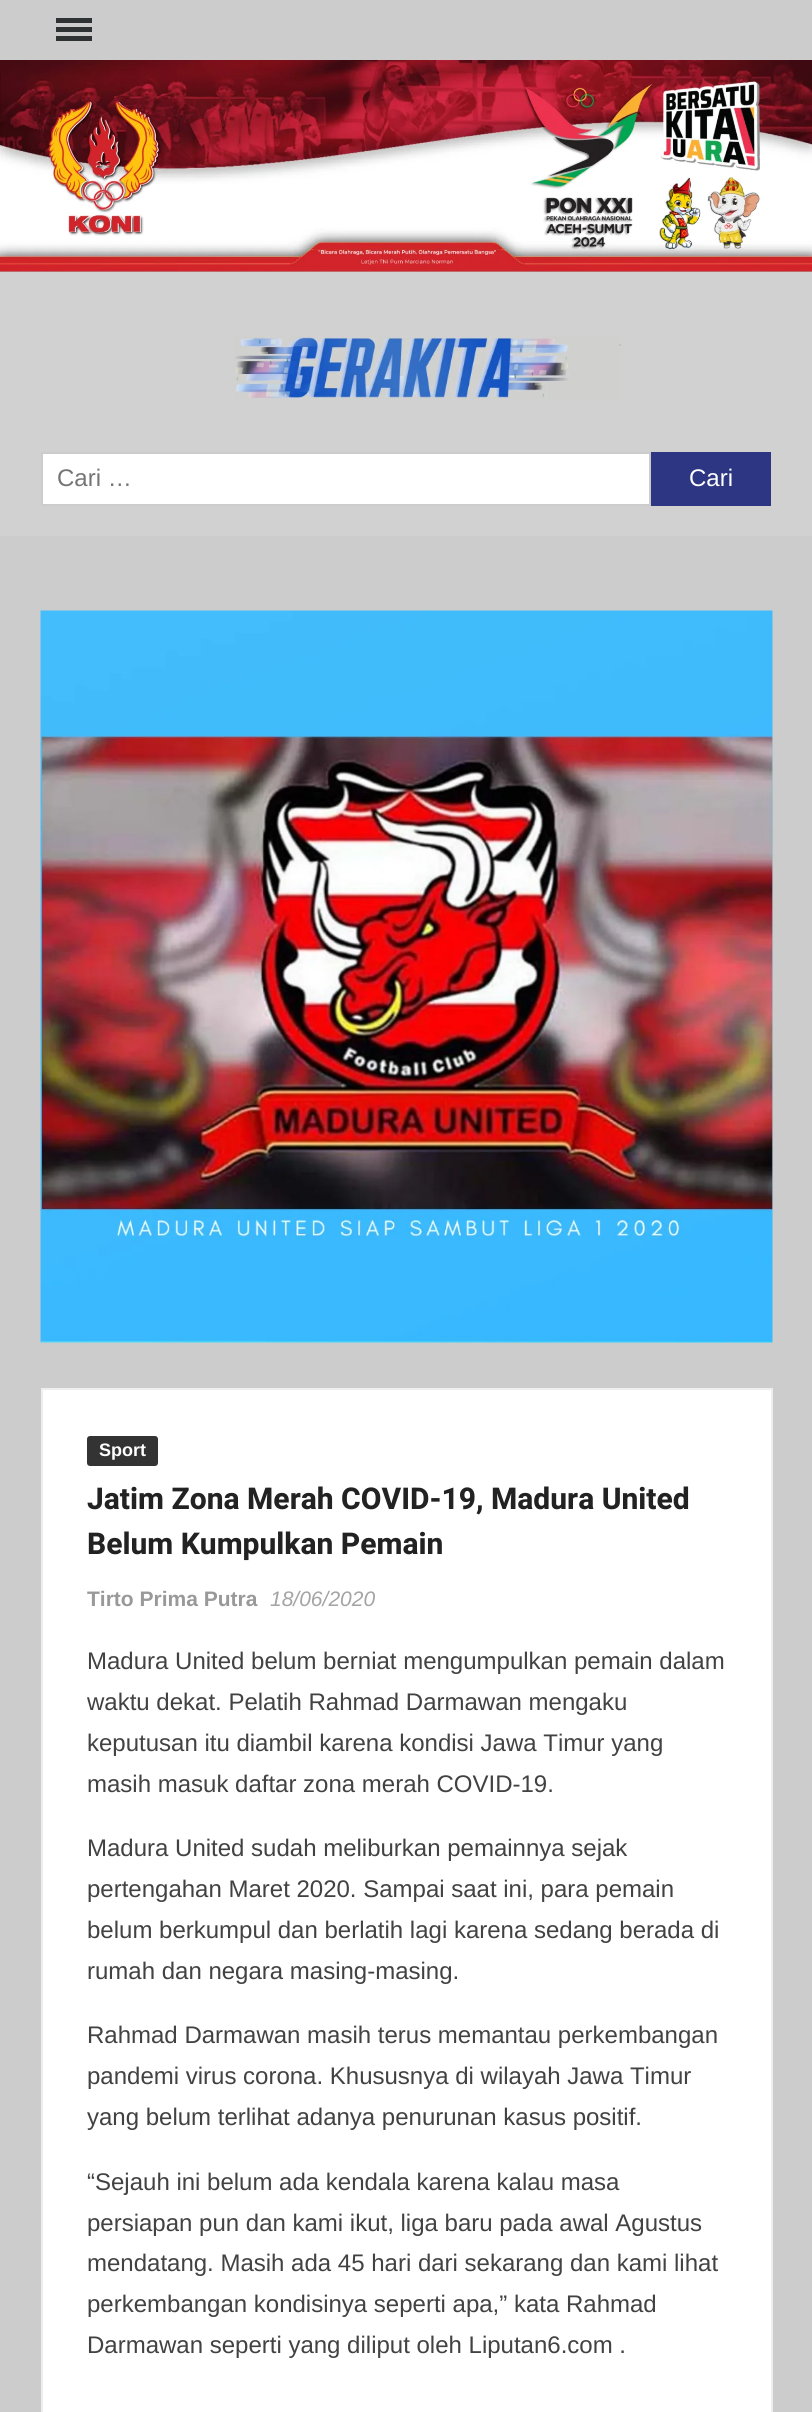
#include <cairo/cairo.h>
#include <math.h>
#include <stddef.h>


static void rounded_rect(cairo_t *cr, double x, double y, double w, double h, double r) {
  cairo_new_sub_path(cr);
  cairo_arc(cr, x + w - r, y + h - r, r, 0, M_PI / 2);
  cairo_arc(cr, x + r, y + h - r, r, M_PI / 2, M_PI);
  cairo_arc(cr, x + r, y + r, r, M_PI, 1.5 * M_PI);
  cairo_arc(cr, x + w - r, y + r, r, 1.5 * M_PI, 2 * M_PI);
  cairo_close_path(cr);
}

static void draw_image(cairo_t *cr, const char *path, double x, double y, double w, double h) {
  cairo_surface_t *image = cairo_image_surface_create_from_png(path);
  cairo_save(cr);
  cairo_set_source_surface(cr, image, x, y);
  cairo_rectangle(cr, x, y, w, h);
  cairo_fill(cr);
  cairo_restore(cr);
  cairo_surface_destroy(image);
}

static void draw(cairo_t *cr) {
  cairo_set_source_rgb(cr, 204 / 255.0, 204 / 255.0, 204 / 255.0);
  cairo_paint(cr);
  cairo_set_source_rgb(cr, 46 / 255.0, 50 / 255.0, 51 / 255.0);
  cairo_rectangle(cr, 56, 27, 36, 5);
  cairo_fill(cr);
  cairo_rectangle(cr, 56, 18, 36, 5);
  cairo_fill(cr);
  cairo_rectangle(cr, 56, 36, 36, 5);
  cairo_fill(cr);
  cairo_set_source_rgb(cr, 175 / 255.0, 175 / 255.0, 175 / 255.0);
  cairo_rectangle(cr, 0, 271, 812, 1);
  cairo_fill(cr);
  draw_image(cr, "images/1.png", 0, 60, 812, 212);
  cairo_set_source_rgb(cr, 209 / 255.0, 209 / 255.0, 209 / 255.0);
  cairo_rectangle(cr, 0, 272, 812, 264);
  cairo_fill(cr);
  draw_image(cr, "images/2.png", 234, 335, 387, 64);
  cairo_set_source_rgb(cr, 1, 1, 1);
  cairo_rectangle(cr, 42, 453, 608, 52);
  cairo_fill_preserve(cr);
  cairo_set_source_rgb(cr, 204 / 255.0, 204 / 255.0, 204 / 255.0);
  cairo_stroke(cr);
  cairo_set_source_rgb(cr, 44 / 255.0, 54 / 255.0, 130 / 255.0);
  cairo_rectangle(cr, 651, 452, 120, 54);
  cairo_fill(cr);
  draw_image(cr, "images/3.png", 40, 610, 733, 733);
  cairo_set_source_rgb(cr, 1, 1, 1);
  cairo_rectangle(cr, 42, 1389, 730, 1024);
  cairo_fill_preserve(cr);
  cairo_set_source_rgb(cr, 238 / 255.0, 238 / 255.0, 238 / 255.0);
  cairo_stroke(cr);
  cairo_set_source_rgb(cr, 51 / 255.0, 51 / 255.0, 51 / 255.0);
  rounded_rect(cr, 87, 1436, 71, 30, 3);
  cairo_fill(cr);
  cairo_select_font_face(cr, "Arimo", CAIRO_FONT_SLANT_NORMAL, CAIRO_FONT_WEIGHT_NORMAL);
  cairo_set_font_size(cr, 24);
  cairo_set_source_rgb(cr, 117 / 255.0, 117 / 255.0, 117 / 255.0);
  cairo_move_to(cr, 57, 486);
  cairo_show_text(cr, "Cari …");
  cairo_set_source_rgb(cr, 1, 1, 1);
  cairo_move_to(cr, 689, 486);
  cairo_show_text(cr, "Cari");
  cairo_select_font_face(cr, "Arimo", CAIRO_FONT_SLANT_NORMAL, CAIRO_FONT_WEIGHT_BOLD);
  cairo_set_font_size(cr, 18);
  cairo_move_to(cr, 99, 1456);
  cairo_show_text(cr, "Sport");
  cairo_select_font_face(cr, "Heebo", CAIRO_FONT_SLANT_NORMAL, CAIRO_FONT_WEIGHT_BOLD);
  cairo_set_font_size(cr, 30);
  cairo_set_source_rgb(cr, 34 / 255.0, 34 / 255.0, 34 / 255.0);
  cairo_move_to(cr, 87, 1509);
  cairo_show_text(cr, "Jatim Zona Merah COVID-19, Madura United");
  cairo_move_to(cr, 87, 1554);
  cairo_show_text(cr, "Belum Kumpulkan Pemain");
  cairo_select_font_face(cr, "Arimo", CAIRO_FONT_SLANT_NORMAL, CAIRO_FONT_WEIGHT_BOLD);
  cairo_set_font_size(cr, 21);
  cairo_set_source_rgb(cr, 153 / 255.0, 153 / 255.0, 153 / 255.0);
  cairo_move_to(cr, 87, 1606);
  cairo_show_text(cr, "Tirto Prima Putra");
  cairo_select_font_face(cr, "Arimo", CAIRO_FONT_SLANT_ITALIC, CAIRO_FONT_WEIGHT_NORMAL);
  cairo_set_source_rgb(cr, 164 / 255.0, 164 / 255.0, 164 / 255.0);
  cairo_move_to(cr, 270, 1606);
  cairo_show_text(cr, "18/06/2020");
  cairo_select_font_face(cr, "Arimo", CAIRO_FONT_SLANT_NORMAL, CAIRO_FONT_WEIGHT_NORMAL);
  cairo_set_font_size(cr, 24);
  cairo_set_source_rgb(cr, 66 / 255.0, 66 / 255.0, 66 / 255.0);
  cairo_move_to(cr, 87, 1669);
  cairo_show_text(cr, "Madura United belum berniat mengumpulkan pemain dalam");
  cairo_move_to(cr, 87, 1710);
  cairo_show_text(cr, "waktu dekat. Pelatih Rahmad Darmawan mengaku");
  cairo_move_to(cr, 87, 1751);
  cairo_show_text(cr, "keputusan itu diambil karena kondisi Jawa Timur yang");
  cairo_move_to(cr, 87, 1792);
  cairo_show_text(cr, "masih masuk daftar zona merah COVID-19.");
  cairo_move_to(cr, 87, 1856);
  cairo_show_text(cr, "Madura United sudah meliburkan pemainnya sejak");
  cairo_move_to(cr, 87, 1897);
  cairo_show_text(cr, "pertengahan Maret 2020. Sampai saat ini, para pemain");
  cairo_move_to(cr, 87, 1938);
  cairo_show_text(cr, "belum berkumpul dan berlatih lagi karena sedang berada di");
  cairo_move_to(cr, 87, 1979);
  cairo_show_text(cr, "rumah dan negara masing-masing.");
  cairo_move_to(cr, 87, 2043);
  cairo_show_text(cr, "Rahmad Darmawan masih terus memantau perkembangan");
  cairo_move_to(cr, 87, 2084);
  cairo_show_text(cr, "pandemi virus corona. Khususnya di wilayah Jawa Timur");
  cairo_move_to(cr, 87, 2125);
  cairo_show_text(cr, "yang belum terlihat adanya penurunan kasus positif.");
  cairo_move_to(cr, 87, 2190);
  cairo_show_text(cr, "“Sejauh ini belum ada kendala karena kalau masa");
  cairo_move_to(cr, 87, 2231);
  cairo_show_text(cr, "persiapan pun dan kami ikut, liga baru pada awal Agustus");
  cairo_move_to(cr, 87, 2271);
  cairo_show_text(cr, "mendatang. Masih ada 45 hari dari sekarang dan kami lihat");
  cairo_move_to(cr, 87, 2312);
  cairo_show_text(cr, "perkembangan kondisinya seperti apa,” kata Rahmad");
  cairo_move_to(cr, 87, 2353);
  cairo_show_text(cr, "Darmawan seperti yang diliput oleh Liputan6.com .");
}

int main(void) {
  cairo_surface_t *surface = cairo_image_surface_create(CAIRO_FORMAT_RGB24, 812, 2412);
  cairo_t *cr = cairo_create(surface);
  cairo_font_options_t *options = cairo_font_options_create();
  cairo_font_options_set_hint_metrics(options, CAIRO_HINT_METRICS_OFF);
  cairo_font_options_set_hint_style(options, CAIRO_HINT_STYLE_NONE);
  cairo_set_font_options(cr, options);
  cairo_set_miter_limit(cr, 4);
  draw(cr);
  cairo_surface_write_to_png(surface, "out.png");
  cairo_font_options_destroy(options);
  cairo_destroy(cr);
  cairo_surface_destroy(surface);
  return 0;
}
